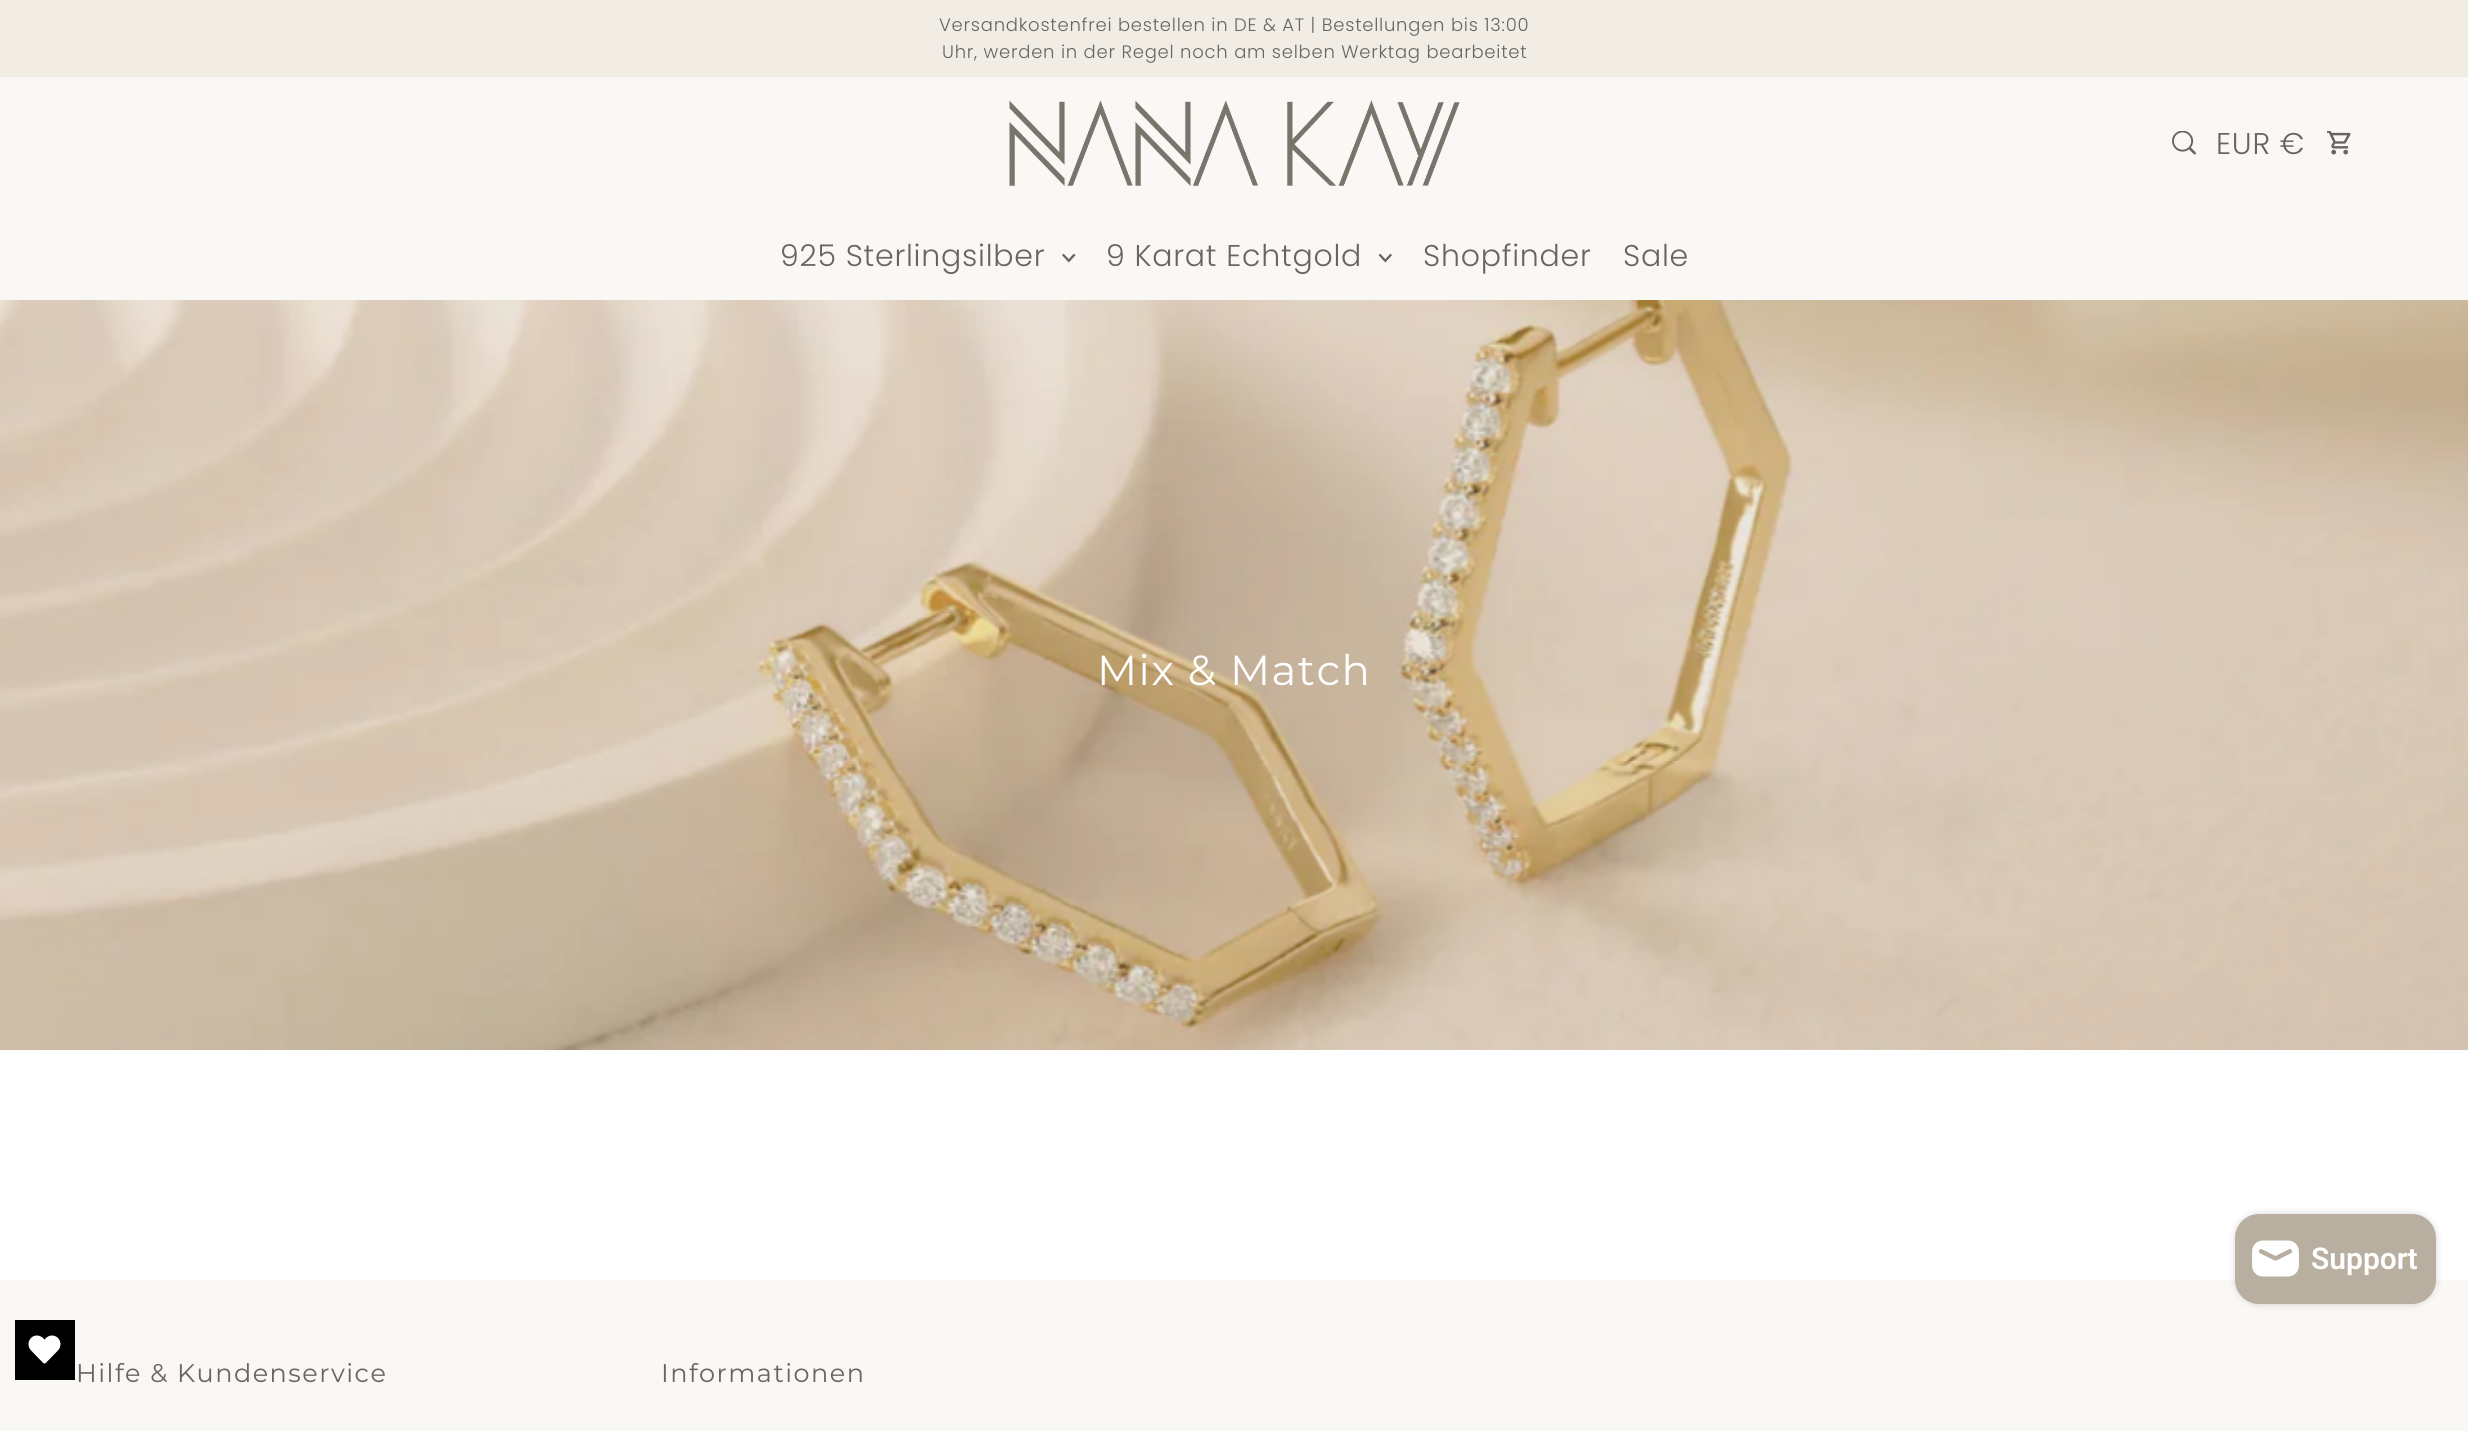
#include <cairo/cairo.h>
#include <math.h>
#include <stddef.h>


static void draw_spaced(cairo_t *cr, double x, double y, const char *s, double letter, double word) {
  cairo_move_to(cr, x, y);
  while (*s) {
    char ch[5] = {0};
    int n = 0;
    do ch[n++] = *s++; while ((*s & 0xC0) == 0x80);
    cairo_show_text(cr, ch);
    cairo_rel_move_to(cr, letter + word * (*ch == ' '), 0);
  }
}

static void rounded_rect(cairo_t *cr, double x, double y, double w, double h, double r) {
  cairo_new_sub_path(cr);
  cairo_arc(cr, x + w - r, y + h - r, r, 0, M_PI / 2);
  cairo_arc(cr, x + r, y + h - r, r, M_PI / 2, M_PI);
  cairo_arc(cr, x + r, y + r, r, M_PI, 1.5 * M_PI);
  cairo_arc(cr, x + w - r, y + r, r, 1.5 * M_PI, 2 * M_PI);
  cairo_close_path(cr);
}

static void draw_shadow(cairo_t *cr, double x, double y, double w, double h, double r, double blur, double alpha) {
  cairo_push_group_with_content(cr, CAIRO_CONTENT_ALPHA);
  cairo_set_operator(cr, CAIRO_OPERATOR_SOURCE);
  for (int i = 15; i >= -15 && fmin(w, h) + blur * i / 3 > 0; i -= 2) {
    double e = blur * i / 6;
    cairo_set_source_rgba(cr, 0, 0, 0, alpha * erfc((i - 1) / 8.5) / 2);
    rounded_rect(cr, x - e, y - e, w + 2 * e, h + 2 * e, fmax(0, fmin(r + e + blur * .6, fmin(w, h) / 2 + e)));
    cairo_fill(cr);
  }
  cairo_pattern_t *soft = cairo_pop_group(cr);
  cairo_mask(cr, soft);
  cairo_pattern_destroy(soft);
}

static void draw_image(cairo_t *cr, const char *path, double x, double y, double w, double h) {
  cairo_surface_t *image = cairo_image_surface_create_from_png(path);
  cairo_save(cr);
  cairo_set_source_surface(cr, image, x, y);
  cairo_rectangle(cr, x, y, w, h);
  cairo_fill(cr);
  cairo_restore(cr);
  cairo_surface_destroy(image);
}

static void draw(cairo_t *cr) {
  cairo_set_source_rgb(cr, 1, 1, 1);
  cairo_paint(cr);
  cairo_set_source_rgb(cr, 241 / 255.0, 236 / 255.0, 228 / 255.0);
  cairo_rectangle(cr, 0, 0, 2468, 77);
  cairo_fill(cr);
  cairo_set_source_rgb(cr, 250 / 255.0, 248 / 255.0, 244 / 255.0);
  cairo_rectangle(cr, 0, 77, 2468, 223);
  cairo_fill(cr);
  draw_image(cr, "images/1.png", 1009, 100, 451, 86);
  draw_image(cr, "images/2.png", 2172, 131, 24, 24);
  draw_image(cr, "images/3.png", 2327, 131, 24, 24);
  draw_image(cr, "images/4.png", 1062, 254, 14, 9);
  draw_image(cr, "images/5.png", 1379, 254, 13, 9);
  draw_image(cr, "images/6.png", 0, 300, 2468, 750);
  cairo_rectangle(cr, 0, 1280, 2468, 151);
  cairo_fill(cr);
  cairo_set_source_rgb(cr, 0, 0, 0);
  draw_shadow(cr, 2235, 1214, 201, 90, 24, 4, 0.15);
  cairo_set_source_rgb(cr, 185 / 255.0, 175 / 255.0, 160 / 255.0);
  rounded_rect(cr, 2235, 1214, 201, 90, 24);
  cairo_fill(cr);
  draw_image(cr, "images/7.png", 2252, 1240, 47, 37);
  cairo_set_source_rgb(cr, 0, 0, 0);
  cairo_rectangle(cr, 15, 1320, 60, 60);
  cairo_fill(cr);
  draw_image(cr, "images/8.png", 28, 1335, 33, 29);
  cairo_select_font_face(cr, "Poppins Light", CAIRO_FONT_SLANT_NORMAL, CAIRO_FONT_WEIGHT_NORMAL);
  cairo_set_font_size(cr, 18);
  cairo_set_source_rgb(cr, 103 / 255.0, 100 / 255.0, 98 / 255.0);
  draw_spaced(cr, 939, 31, "Versandkostenfrei bestellen in DE & AT | Bestellungen bis 13:00", 0.75, 0);
  draw_spaced(cr, 942, 58, "Uhr, werden in der Regel noch am selben Werktag bearbeitet", 0.75, 0);
  cairo_set_font_size(cr, 30);
  draw_spaced(cr, 2216, 154, "EUR €", 0.75, 0);
  draw_spaced(cr, 780, 266, "925 Sterlingsilber", 0.75, 0);
  draw_spaced(cr, 1106, 266, "9 Karat Echtgold", 0.75, 0);
  draw_spaced(cr, 1423, 266, "Shopfinder", 0.75, 0);
  draw_spaced(cr, 1623, 266, "Sale", 0.75, 0);
  cairo_select_font_face(cr, "Montserrat", CAIRO_FONT_SLANT_NORMAL, CAIRO_FONT_WEIGHT_NORMAL);
  cairo_set_font_size(cr, 42);
  cairo_set_source_rgb(cr, 1, 1, 1);
  draw_spaced(cr, 1097, 685, "Mix & Match", 1.5, 0);
  cairo_set_font_size(cr, 25.5);
  cairo_set_source_rgb(cr, 103 / 255.0, 100 / 255.0, 98 / 255.0);
  draw_spaced(cr, 76, 1382, "Hilfe & Kundenservice", 1.5, 0);
  draw_spaced(cr, 661, 1382, "Informationen", 1.5, 0);
  cairo_select_font_face(cr, "Roboto SemiBold", CAIRO_FONT_SLANT_NORMAL, CAIRO_FONT_WEIGHT_NORMAL);
  cairo_set_font_size(cr, 30);
  cairo_set_source_rgb(cr, 1, 1, 1);
  cairo_move_to(cr, 2311, 1269);
  cairo_show_text(cr, "Support");
}

int main(void) {
  cairo_surface_t *surface = cairo_image_surface_create(CAIRO_FORMAT_RGB24, 2468, 1431);
  cairo_t *cr = cairo_create(surface);
  cairo_font_options_t *options = cairo_font_options_create();
  cairo_font_options_set_hint_metrics(options, CAIRO_HINT_METRICS_OFF);
  cairo_font_options_set_hint_style(options, CAIRO_HINT_STYLE_NONE);
  cairo_set_font_options(cr, options);
  cairo_set_miter_limit(cr, 4);
  draw(cr);
  cairo_surface_write_to_png(surface, "out.png");
  cairo_font_options_destroy(options);
  cairo_destroy(cr);
  cairo_surface_destroy(surface);
  return 0;
}
